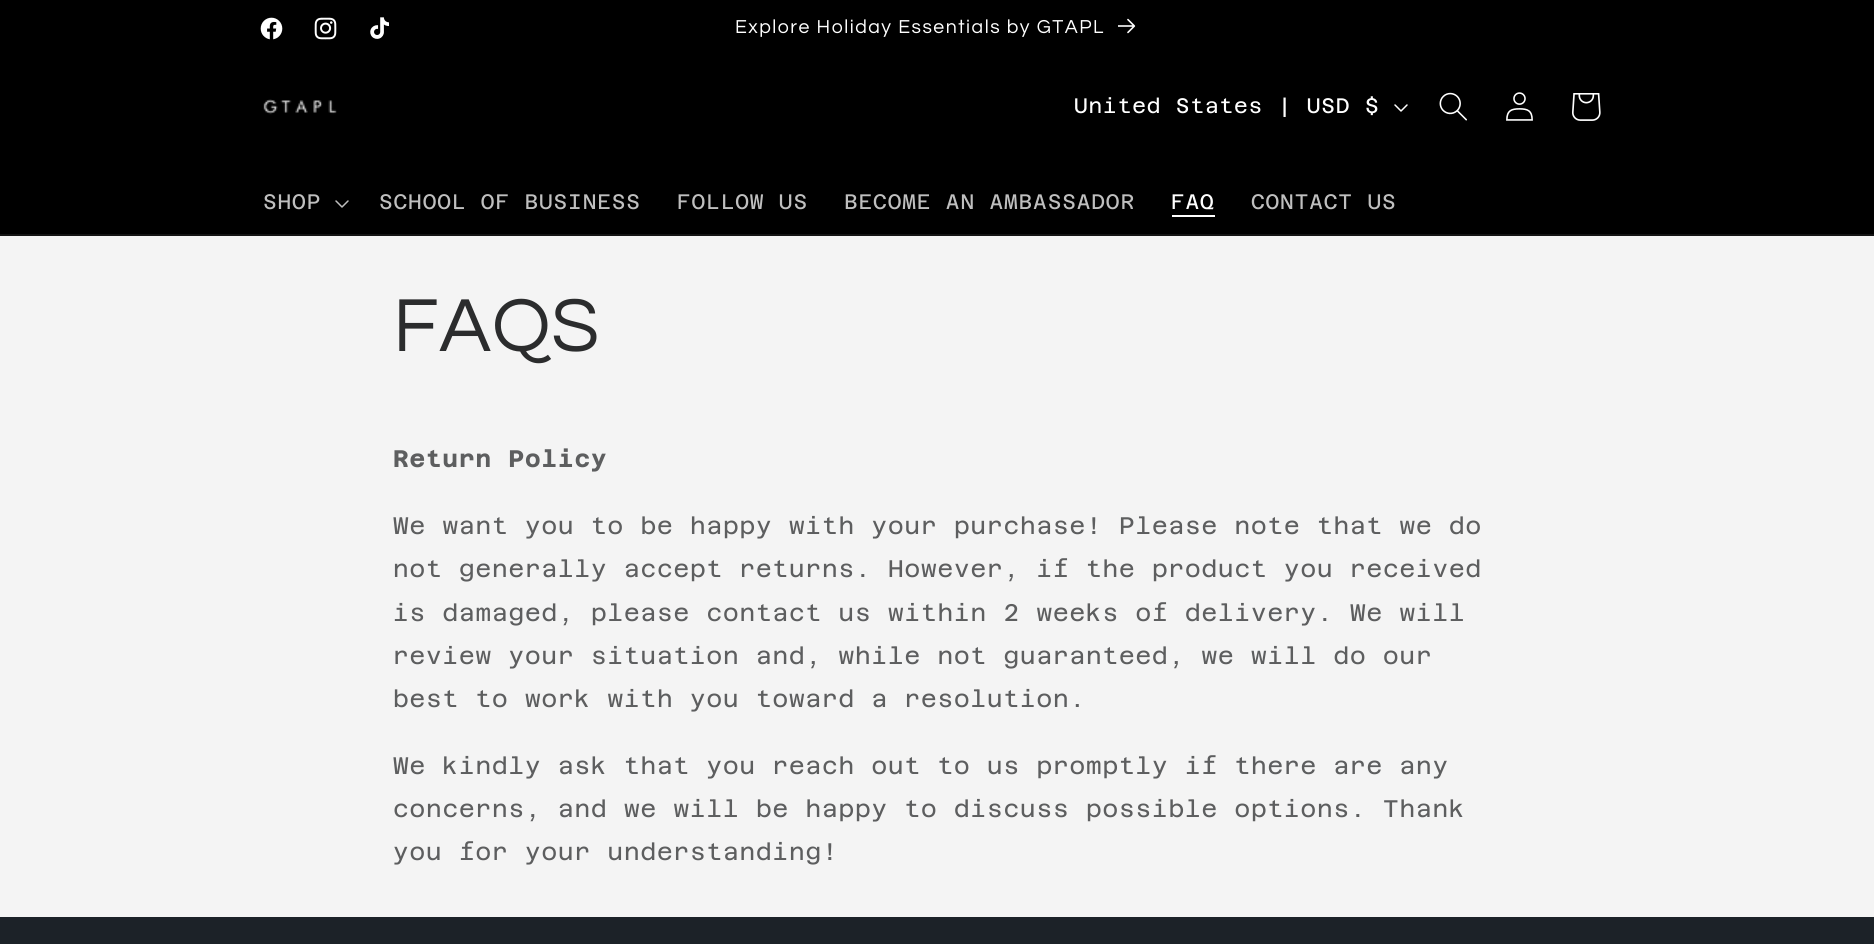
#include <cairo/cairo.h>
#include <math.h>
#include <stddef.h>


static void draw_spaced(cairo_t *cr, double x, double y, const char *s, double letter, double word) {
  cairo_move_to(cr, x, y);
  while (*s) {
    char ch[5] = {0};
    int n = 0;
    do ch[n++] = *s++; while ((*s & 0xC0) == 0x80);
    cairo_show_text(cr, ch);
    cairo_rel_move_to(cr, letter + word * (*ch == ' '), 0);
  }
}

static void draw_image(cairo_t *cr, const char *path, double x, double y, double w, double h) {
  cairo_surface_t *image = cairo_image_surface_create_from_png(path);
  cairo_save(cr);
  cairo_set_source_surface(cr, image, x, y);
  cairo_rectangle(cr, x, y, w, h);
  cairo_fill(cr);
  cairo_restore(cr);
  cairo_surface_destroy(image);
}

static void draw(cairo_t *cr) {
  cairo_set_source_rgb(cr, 244 / 255.0, 244 / 255.0, 244 / 255.0);
  cairo_paint(cr);
  cairo_set_source_rgb(cr, 0, 0, 0);
  cairo_rectangle(cr, 0, 0, 1874, 234);
  cairo_fill(cr);
  draw_image(cr, "images/1.png", 260, 17, 23, 23);
  draw_image(cr, "images/2.png", 314, 17, 23, 23);
  draw_image(cr, "images/3.png", 370, 17, 19, 22);
  draw_image(cr, "images/4.png", 1118, 18, 18, 16);
  cairo_set_source_rgb(cr, 20 / 255.0, 20 / 255.0, 20 / 255.0);
  cairo_rectangle(cr, 0, 234, 1874, 2);
  cairo_fill(cr);
  draw_image(cr, "images/5.png", 263, 99, 74, 16);
  draw_image(cr, "images/6.png", 1394, 104, 14, 8);
  draw_image(cr, "images/7.png", 1439, 92, 28, 29);
  draw_image(cr, "images/8.png", 1506, 92, 27, 29);
  draw_image(cr, "images/9.png", 1572, 93, 29, 28);
  draw_image(cr, "images/10.png", 335, 200, 14, 8);
  cairo_set_source_rgb(cr, 1, 1, 1);
  cairo_rectangle(cr, 1172, 215, 43, 2);
  cairo_fill(cr);
  cairo_set_source_rgb(cr, 28 / 255.0, 34 / 255.0, 40 / 255.0);
  cairo_rectangle(cr, 0, 917, 1874, 27);
  cairo_fill(cr);
  cairo_select_font_face(cr, "Questrial", CAIRO_FONT_SLANT_NORMAL, CAIRO_FONT_WEIGHT_NORMAL);
  cairo_set_font_size(cr, 19.5);
  cairo_set_source_rgb(cr, 1, 1, 1);
  draw_spaced(cr, 735, 33, "Explore Holiday Essentials by GTAPL", 1.5, 0);
  cairo_select_font_face(cr, "Azeret Mono", CAIRO_FONT_SLANT_NORMAL, CAIRO_FONT_WEIGHT_NORMAL);
  cairo_set_font_size(cr, 21);
  draw_spaced(cr, 1074, 113, "United States | USD $", 0.9, 0);
  cairo_set_source_rgb(cr, 191 / 255.0, 191 / 255.0, 191 / 255.0);
  draw_spaced(cr, 263, 209, "SHOP", 0.9, 0);
  draw_spaced(cr, 379, 209, "SCHOOL OF BUSINESS", 0.9, 0);
  draw_spaced(cr, 677, 209, "FOLLOW US", 0.9, 0);
  draw_spaced(cr, 844, 209, "BECOME AN AMBASSADOR", 0.9, 0);
  cairo_set_source_rgb(cr, 1, 1, 1);
  draw_spaced(cr, 1171, 209, "FAQ", 0.9, 0);
  cairo_set_source_rgb(cr, 191 / 255.0, 191 / 255.0, 191 / 255.0);
  draw_spaced(cr, 1251, 209, "CONTACT US", 0.9, 0);
  cairo_select_font_face(cr, "Questrial", CAIRO_FONT_SLANT_NORMAL, CAIRO_FONT_WEIGHT_NORMAL);
  cairo_set_font_size(cr, 78);
  cairo_set_source_rgb(cr, 43 / 255.0, 44 / 255.0, 45 / 255.0);
  draw_spaced(cr, 393, 351, "FAQS", 0.9, 0);
  cairo_select_font_face(cr, "Azeret Mono", CAIRO_FONT_SLANT_NORMAL, CAIRO_FONT_WEIGHT_BOLD);
  cairo_set_font_size(cr, 24);
  cairo_set_source_rgb(cr, 93 / 255.0, 94 / 255.0, 95 / 255.0);
  draw_spaced(cr, 393, 467, "Return Policy", 0.9, 0);
  cairo_select_font_face(cr, "Azeret Mono", CAIRO_FONT_SLANT_NORMAL, CAIRO_FONT_WEIGHT_NORMAL);
  draw_spaced(cr, 393, 534, "We want you to be happy with your purchase! Please note that we do", 0.9, 0);
  draw_spaced(cr, 393, 577, "not generally accept returns. However, if the product you received", 0.9, 0);
  draw_spaced(cr, 393, 621, "is damaged, please contact us within 2 weeks of delivery. We will", 0.9, 0);
  draw_spaced(cr, 393, 664, "review your situation and, while not guaranteed, we will do our", 0.9, 0);
  draw_spaced(cr, 393, 707, "best to work with you toward a resolution.", 0.9, 0);
  draw_spaced(cr, 393, 774, "We kindly ask that you reach out to us promptly if there are any", 0.9, 0);
  draw_spaced(cr, 393, 817, "concerns, and we will be happy to discuss possible options. Thank", 0.9, 0);
  draw_spaced(cr, 393, 860, "you for your understanding!", 0.9, 0);
}

int main(void) {
  cairo_surface_t *surface = cairo_image_surface_create(CAIRO_FORMAT_RGB24, 1874, 944);
  cairo_t *cr = cairo_create(surface);
  cairo_font_options_t *options = cairo_font_options_create();
  cairo_font_options_set_hint_metrics(options, CAIRO_HINT_METRICS_OFF);
  cairo_font_options_set_hint_style(options, CAIRO_HINT_STYLE_NONE);
  cairo_set_font_options(cr, options);
  cairo_set_miter_limit(cr, 4);
  draw(cr);
  cairo_surface_write_to_png(surface, "out.png");
  cairo_font_options_destroy(options);
  cairo_destroy(cr);
  cairo_surface_destroy(surface);
  return 0;
}
